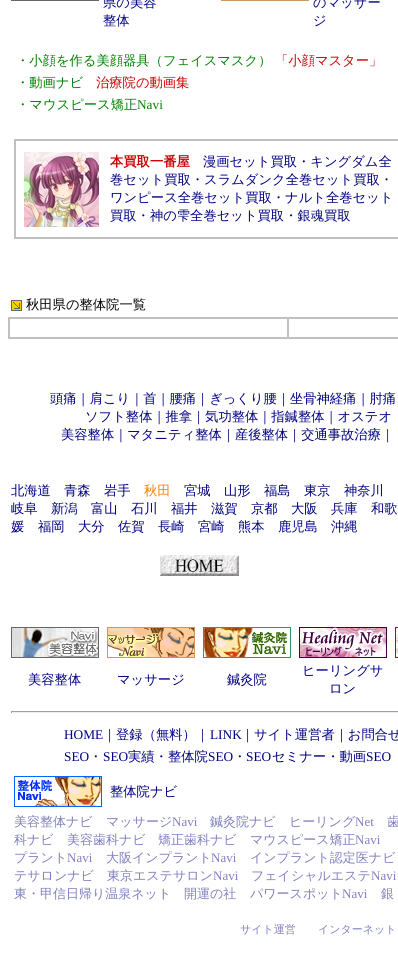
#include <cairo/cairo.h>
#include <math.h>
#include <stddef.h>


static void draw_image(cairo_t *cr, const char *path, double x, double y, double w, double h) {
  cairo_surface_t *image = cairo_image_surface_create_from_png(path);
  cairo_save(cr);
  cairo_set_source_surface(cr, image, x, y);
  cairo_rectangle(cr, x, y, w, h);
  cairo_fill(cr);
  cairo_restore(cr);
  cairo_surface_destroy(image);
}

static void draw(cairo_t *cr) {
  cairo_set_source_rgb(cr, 1, 1, 1);
  cairo_paint(cr);
  cairo_set_source_rgb(cr, 102 / 255.0, 102 / 255.0, 102 / 255.0);
  cairo_rectangle(cr, 11, 0, 88, 1);
  cairo_fill(cr);
  cairo_set_source_rgb(cr, 204 / 255.0, 153 / 255.0, 102 / 255.0);
  cairo_rectangle(cr, 221, 0, 88, 1);
  cairo_fill(cr);
  cairo_set_source_rgb(cr, 192 / 255.0, 192 / 255.0, 192 / 255.0);
  cairo_rectangle(cr, 14, 139, 384, 100);
  cairo_fill(cr);
  cairo_set_source_rgb(cr, 1, 1, 1);
  cairo_rectangle(cr, 16, 141, 382, 96);
  cairo_fill(cr);
  draw_image(cr, "images/1.png", 24, 152, 75, 75);
  draw_image(cr, "images/2.png", 11, 300, 11, 11);
  cairo_set_source_rgb(cr, 192 / 255.0, 192 / 255.0, 192 / 255.0);
  cairo_rectangle(cr, 8, 317, 390, 22);
  cairo_fill(cr);
  cairo_set_source_rgb(cr, 1, 1, 1);
  cairo_rectangle(cr, 10, 319, 277, 18);
  cairo_fill(cr);
  cairo_rectangle(cr, 289, 319, 109, 18);
  cairo_fill(cr);
  draw_image(cr, "images/3.png", 160, 555, 79, 21);
  draw_image(cr, "images/4.png", 11, 627, 88, 31);
  draw_image(cr, "images/5.png", 107, 627, 88, 31);
  draw_image(cr, "images/6.png", 203, 627, 88, 31);
  draw_image(cr, "images/7.png", 299, 627, 88, 31);
  draw_image(cr, "images/8.png", 395, 627, 3, 31);
  cairo_set_source_rgb(cr, 159 / 255.0, 159 / 255.0, 159 / 255.0);
  cairo_rectangle(cr, 11, 711, 387, 1);
  cairo_fill(cr);
  cairo_set_source_rgb(cr, 238 / 255.0, 238 / 255.0, 238 / 255.0);
  cairo_rectangle(cr, 11, 712, 387, 1);
  cairo_fill(cr);
  cairo_set_source_rgb(cr, 159 / 255.0, 159 / 255.0, 159 / 255.0);
  cairo_rectangle(cr, 11, 711, 1, 2);
  cairo_fill(cr);
  draw_image(cr, "images/9.png", 14, 776, 88, 31);
  cairo_select_font_face(cr, "WenQuanYi Zen Hei Medium", CAIRO_FONT_SLANT_NORMAL, CAIRO_FONT_WEIGHT_NORMAL);
  cairo_set_font_size(cr, 13.3);
  cairo_set_source_rgb(cr, 0, 0, 128 / 255.0);
  cairo_move_to(cr, 103, 7);
  cairo_show_text(cr, "県の美容");
  cairo_move_to(cr, 103, 25);
  cairo_show_text(cr, "整体");
  cairo_move_to(cr, 313, 7);
  cairo_show_text(cr, "のマッサー");
  cairo_move_to(cr, 313, 25);
  cairo_show_text(cr, "ジ");
  cairo_set_source_rgb(cr, 0, 128 / 255.0, 0);
  cairo_move_to(cr, 16, 65);
  cairo_show_text(cr, "・小顔を作る美顔器具（フェイスマスク）");
  cairo_set_source_rgb(cr, 206 / 255.0, 0, 0);
  cairo_move_to(cr, 275, 65);
  cairo_show_text(cr, "「小顔マスター」");
  cairo_set_source_rgb(cr, 0, 128 / 255.0, 0);
  cairo_move_to(cr, 16, 87);
  cairo_show_text(cr, "・動画ナビ");
  cairo_set_source_rgb(cr, 206 / 255.0, 0, 0);
  cairo_move_to(cr, 96, 87);
  cairo_show_text(cr, "治療院の動画集");
  cairo_set_source_rgb(cr, 0, 128 / 255.0, 0);
  cairo_move_to(cr, 16, 109);
  cairo_show_text(cr, "・マウスピース矯正");
  cairo_select_font_face(cr, "Liberation Serif", CAIRO_FONT_SLANT_NORMAL, CAIRO_FONT_WEIGHT_NORMAL);
  cairo_move_to(cr, 137, 109);
  cairo_show_text(cr, "Navi");
  cairo_select_font_face(cr, "WenQuanYi Zen Hei", CAIRO_FONT_SLANT_NORMAL, CAIRO_FONT_WEIGHT_BOLD);
  cairo_set_source_rgb(cr, 206 / 255.0, 0, 0);
  cairo_move_to(cr, 110, 166);
  cairo_show_text(cr, "本買取一番屋");
  cairo_select_font_face(cr, "WenQuanYi Zen Hei Medium", CAIRO_FONT_SLANT_NORMAL, CAIRO_FONT_WEIGHT_NORMAL);
  cairo_set_source_rgb(cr, 0, 0, 128 / 255.0);
  cairo_move_to(cr, 203, 166);
  cairo_show_text(cr, "漫画セット買取・キングダム全");
  cairo_move_to(cr, 110, 184);
  cairo_show_text(cr, "巻セット買取・スラムダンク全巻セット買取・");
  cairo_move_to(cr, 110, 202);
  cairo_show_text(cr, "ワンピース全巻セット買取・ナルト全巻セット");
  cairo_move_to(cr, 110, 220);
  cairo_show_text(cr, "買取・神の雫全巻セット買取・銀魂買取");
  cairo_set_source_rgb(cr, 0, 0, 0);
  cairo_move_to(cr, 26, 309);
  cairo_show_text(cr, "秋田県の整体院一覧");
  cairo_set_source_rgb(cr, 0, 0, 128 / 255.0);
  cairo_move_to(cr, 50, 403);
  cairo_show_text(cr, "頭痛｜肩こり｜首｜腰痛｜ぎっくり腰｜坐骨神経痛｜肘痛");
  cairo_move_to(cr, 85, 421);
  cairo_show_text(cr, "ソフト整体｜推拿｜気功整体｜指鍼整体｜オステオ");
  cairo_move_to(cr, 61, 439);
  cairo_show_text(cr, "美容整体｜マタニティ整体｜産後整体｜交通事故治療｜");
  cairo_move_to(cr, 11, 495);
  cairo_show_text(cr, "北海道");
  cairo_move_to(cr, 64, 495);
  cairo_show_text(cr, "青森");
  cairo_move_to(cr, 104, 495);
  cairo_show_text(cr, "岩手");
  cairo_set_source_rgb(cr, 1, 128 / 255.0, 0);
  cairo_move_to(cr, 144, 495);
  cairo_show_text(cr, "秋田");
  cairo_set_source_rgb(cr, 0, 0, 128 / 255.0);
  cairo_move_to(cr, 184, 495);
  cairo_show_text(cr, "宮城");
  cairo_move_to(cr, 224, 495);
  cairo_show_text(cr, "山形");
  cairo_move_to(cr, 264, 495);
  cairo_show_text(cr, "福島");
  cairo_move_to(cr, 304, 495);
  cairo_show_text(cr, "東京");
  cairo_move_to(cr, 344, 495);
  cairo_show_text(cr, "神奈川");
  cairo_move_to(cr, 11, 513);
  cairo_show_text(cr, "岐阜");
  cairo_move_to(cr, 51, 513);
  cairo_show_text(cr, "新潟");
  cairo_move_to(cr, 91, 513);
  cairo_show_text(cr, "富山");
  cairo_move_to(cr, 131, 513);
  cairo_show_text(cr, "石川");
  cairo_move_to(cr, 171, 513);
  cairo_show_text(cr, "福井");
  cairo_move_to(cr, 211, 513);
  cairo_show_text(cr, "滋賀");
  cairo_move_to(cr, 251, 513);
  cairo_show_text(cr, "京都");
  cairo_move_to(cr, 291, 513);
  cairo_show_text(cr, "大阪");
  cairo_move_to(cr, 331, 513);
  cairo_show_text(cr, "兵庫");
  cairo_move_to(cr, 371, 513);
  cairo_show_text(cr, "和歌");
  cairo_move_to(cr, 11, 531);
  cairo_show_text(cr, "媛");
  cairo_move_to(cr, 38, 531);
  cairo_show_text(cr, "福岡");
  cairo_move_to(cr, 78, 531);
  cairo_show_text(cr, "大分");
  cairo_move_to(cr, 118, 531);
  cairo_show_text(cr, "佐賀");
  cairo_move_to(cr, 158, 531);
  cairo_show_text(cr, "長崎");
  cairo_move_to(cr, 198, 531);
  cairo_show_text(cr, "宮崎");
  cairo_move_to(cr, 238, 531);
  cairo_show_text(cr, "熊本");
  cairo_move_to(cr, 278, 531);
  cairo_show_text(cr, "鹿児島");
  cairo_move_to(cr, 331, 531);
  cairo_show_text(cr, "沖縄");
  cairo_move_to(cr, 28, 684);
  cairo_show_text(cr, "美容整体");
  cairo_move_to(cr, 117, 684);
  cairo_show_text(cr, "マッサージ");
  cairo_move_to(cr, 227, 684);
  cairo_show_text(cr, "鍼灸院");
  cairo_move_to(cr, 302, 675);
  cairo_show_text(cr, "ヒーリングサ");
  cairo_move_to(cr, 329, 693);
  cairo_show_text(cr, "ロン");
  cairo_select_font_face(cr, "Liberation Serif", CAIRO_FONT_SLANT_NORMAL, CAIRO_FONT_WEIGHT_NORMAL);
  cairo_move_to(cr, 64, 739);
  cairo_show_text(cr, "HOME");
  cairo_select_font_face(cr, "WenQuanYi Zen Hei Medium", CAIRO_FONT_SLANT_NORMAL, CAIRO_FONT_WEIGHT_NORMAL);
  cairo_move_to(cr, 103, 739);
  cairo_show_text(cr, "｜登録（無料）｜");
  cairo_select_font_face(cr, "Liberation Serif", CAIRO_FONT_SLANT_NORMAL, CAIRO_FONT_WEIGHT_NORMAL);
  cairo_move_to(cr, 210, 739);
  cairo_show_text(cr, "LINK");
  cairo_select_font_face(cr, "WenQuanYi Zen Hei Medium", CAIRO_FONT_SLANT_NORMAL, CAIRO_FONT_WEIGHT_NORMAL);
  cairo_move_to(cr, 241, 739);
  cairo_show_text(cr, "｜サイト運営者｜お問合せ");
  cairo_select_font_face(cr, "Liberation Serif", CAIRO_FONT_SLANT_NORMAL, CAIRO_FONT_WEIGHT_NORMAL);
  cairo_move_to(cr, 64, 761);
  cairo_show_text(cr, "SEO");
  cairo_select_font_face(cr, "WenQuanYi Zen Hei Medium", CAIRO_FONT_SLANT_NORMAL, CAIRO_FONT_WEIGHT_NORMAL);
  cairo_move_to(cr, 89, 761);
  cairo_show_text(cr, "・");
  cairo_select_font_face(cr, "Liberation Serif", CAIRO_FONT_SLANT_NORMAL, CAIRO_FONT_WEIGHT_NORMAL);
  cairo_move_to(cr, 103, 761);
  cairo_show_text(cr, "SEO");
  cairo_select_font_face(cr, "WenQuanYi Zen Hei Medium", CAIRO_FONT_SLANT_NORMAL, CAIRO_FONT_WEIGHT_NORMAL);
  cairo_move_to(cr, 128, 761);
  cairo_show_text(cr, "実績・整体院");
  cairo_select_font_face(cr, "Liberation Serif", CAIRO_FONT_SLANT_NORMAL, CAIRO_FONT_WEIGHT_NORMAL);
  cairo_move_to(cr, 208, 761);
  cairo_show_text(cr, "SEO");
  cairo_select_font_face(cr, "WenQuanYi Zen Hei Medium", CAIRO_FONT_SLANT_NORMAL, CAIRO_FONT_WEIGHT_NORMAL);
  cairo_move_to(cr, 233, 761);
  cairo_show_text(cr, "・");
  cairo_select_font_face(cr, "Liberation Serif", CAIRO_FONT_SLANT_NORMAL, CAIRO_FONT_WEIGHT_NORMAL);
  cairo_move_to(cr, 246, 761);
  cairo_show_text(cr, "SEO");
  cairo_select_font_face(cr, "WenQuanYi Zen Hei Medium", CAIRO_FONT_SLANT_NORMAL, CAIRO_FONT_WEIGHT_NORMAL);
  cairo_move_to(cr, 272, 761);
  cairo_show_text(cr, "セミナー・動画");
  cairo_select_font_face(cr, "Liberation Serif", CAIRO_FONT_SLANT_NORMAL, CAIRO_FONT_WEIGHT_NORMAL);
  cairo_move_to(cr, 366, 761);
  cairo_show_text(cr, "SEO");
  cairo_select_font_face(cr, "WenQuanYi Zen Hei Medium", CAIRO_FONT_SLANT_NORMAL, CAIRO_FONT_WEIGHT_NORMAL);
  cairo_move_to(cr, 110, 796);
  cairo_show_text(cr, "整体院ナビ");
  cairo_set_font_size(cr, 13);
  cairo_set_source_rgb(cr, 128 / 255.0, 128 / 255.0, 192 / 255.0);
  cairo_move_to(cr, 14, 826);
  cairo_show_text(cr, "美容整体ナビ");
  cairo_move_to(cr, 106, 826);
  cairo_show_text(cr, "マッサージ");
  cairo_select_font_face(cr, "Liberation Serif", CAIRO_FONT_SLANT_NORMAL, CAIRO_FONT_WEIGHT_NORMAL);
  cairo_move_to(cr, 172, 826);
  cairo_show_text(cr, "Navi");
  cairo_select_font_face(cr, "WenQuanYi Zen Hei Medium", CAIRO_FONT_SLANT_NORMAL, CAIRO_FONT_WEIGHT_NORMAL);
  cairo_move_to(cr, 210, 826);
  cairo_show_text(cr, "鍼灸院ナビ");
  cairo_move_to(cr, 289, 826);
  cairo_show_text(cr, "ヒーリング");
  cairo_select_font_face(cr, "Liberation Serif", CAIRO_FONT_SLANT_NORMAL, CAIRO_FONT_WEIGHT_NORMAL);
  cairo_move_to(cr, 355, 826);
  cairo_show_text(cr, "Net");
  cairo_select_font_face(cr, "WenQuanYi Zen Hei Medium", CAIRO_FONT_SLANT_NORMAL, CAIRO_FONT_WEIGHT_NORMAL);
  cairo_move_to(cr, 387, 826);
  cairo_show_text(cr, "歯");
  cairo_move_to(cr, 14, 844);
  cairo_show_text(cr, "科ナビ");
  cairo_move_to(cr, 67, 844);
  cairo_show_text(cr, "美容歯科ナビ");
  cairo_move_to(cr, 158, 844);
  cairo_show_text(cr, "矯正歯科ナビ");
  cairo_move_to(cr, 250, 844);
  cairo_show_text(cr, "マウスピース矯正");
  cairo_select_font_face(cr, "Liberation Serif", CAIRO_FONT_SLANT_NORMAL, CAIRO_FONT_WEIGHT_NORMAL);
  cairo_move_to(cr, 355, 844);
  cairo_show_text(cr, "Navi");
  cairo_select_font_face(cr, "WenQuanYi Zen Hei Medium", CAIRO_FONT_SLANT_NORMAL, CAIRO_FONT_WEIGHT_NORMAL);
  cairo_move_to(cr, 14, 862);
  cairo_show_text(cr, "プラント");
  cairo_select_font_face(cr, "Liberation Serif", CAIRO_FONT_SLANT_NORMAL, CAIRO_FONT_WEIGHT_NORMAL);
  cairo_move_to(cr, 67, 862);
  cairo_show_text(cr, "Navi");
  cairo_select_font_face(cr, "WenQuanYi Zen Hei Medium", CAIRO_FONT_SLANT_NORMAL, CAIRO_FONT_WEIGHT_NORMAL);
  cairo_move_to(cr, 106, 862);
  cairo_show_text(cr, "大阪インプラント");
  cairo_select_font_face(cr, "Liberation Serif", CAIRO_FONT_SLANT_NORMAL, CAIRO_FONT_WEIGHT_NORMAL);
  cairo_move_to(cr, 211, 862);
  cairo_show_text(cr, "Navi");
  cairo_select_font_face(cr, "WenQuanYi Zen Hei Medium", CAIRO_FONT_SLANT_NORMAL, CAIRO_FONT_WEIGHT_NORMAL);
  cairo_move_to(cr, 250, 862);
  cairo_show_text(cr, "インプラント認定医ナビ");
  cairo_move_to(cr, 14, 880);
  cairo_show_text(cr, "テサロンナビ");
  cairo_move_to(cr, 107, 880);
  cairo_show_text(cr, "東京エステサロン");
  cairo_select_font_face(cr, "Liberation Serif", CAIRO_FONT_SLANT_NORMAL, CAIRO_FONT_WEIGHT_NORMAL);
  cairo_move_to(cr, 213, 880);
  cairo_show_text(cr, "Navi");
  cairo_select_font_face(cr, "WenQuanYi Zen Hei Medium", CAIRO_FONT_SLANT_NORMAL, CAIRO_FONT_WEIGHT_NORMAL);
  cairo_move_to(cr, 251, 880);
  cairo_show_text(cr, "フェイシャルエステ");
  cairo_select_font_face(cr, "Liberation Serif", CAIRO_FONT_SLANT_NORMAL, CAIRO_FONT_WEIGHT_NORMAL);
  cairo_move_to(cr, 371, 880);
  cairo_show_text(cr, "Navi");
  cairo_select_font_face(cr, "WenQuanYi Zen Hei Medium", CAIRO_FONT_SLANT_NORMAL, CAIRO_FONT_WEIGHT_NORMAL);
  cairo_move_to(cr, 14, 898);
  cairo_show_text(cr, "東・甲信日帰り温泉ネット");
  cairo_move_to(cr, 184, 898);
  cairo_show_text(cr, "開運の社");
  cairo_move_to(cr, 250, 898);
  cairo_show_text(cr, "パワースポット");
  cairo_select_font_face(cr, "Liberation Serif", CAIRO_FONT_SLANT_NORMAL, CAIRO_FONT_WEIGHT_NORMAL);
  cairo_move_to(cr, 342, 898);
  cairo_show_text(cr, "Navi");
  cairo_select_font_face(cr, "WenQuanYi Zen Hei Medium", CAIRO_FONT_SLANT_NORMAL, CAIRO_FONT_WEIGHT_NORMAL);
  cairo_move_to(cr, 381, 898);
  cairo_show_text(cr, "銀");
  cairo_set_font_size(cr, 11);
  cairo_move_to(cr, 240, 933);
  cairo_show_text(cr, "サイト運営");
  cairo_move_to(cr, 318, 933);
  cairo_show_text(cr, "インターネット");
}

int main(void) {
  cairo_surface_t *surface = cairo_image_surface_create(CAIRO_FORMAT_RGB24, 398, 972);
  cairo_t *cr = cairo_create(surface);
  cairo_font_options_t *options = cairo_font_options_create();
  cairo_font_options_set_hint_metrics(options, CAIRO_HINT_METRICS_OFF);
  cairo_font_options_set_hint_style(options, CAIRO_HINT_STYLE_NONE);
  cairo_set_font_options(cr, options);
  cairo_set_miter_limit(cr, 4);
  draw(cr);
  cairo_surface_write_to_png(surface, "out.png");
  cairo_font_options_destroy(options);
  cairo_destroy(cr);
  cairo_surface_destroy(surface);
  return 0;
}
